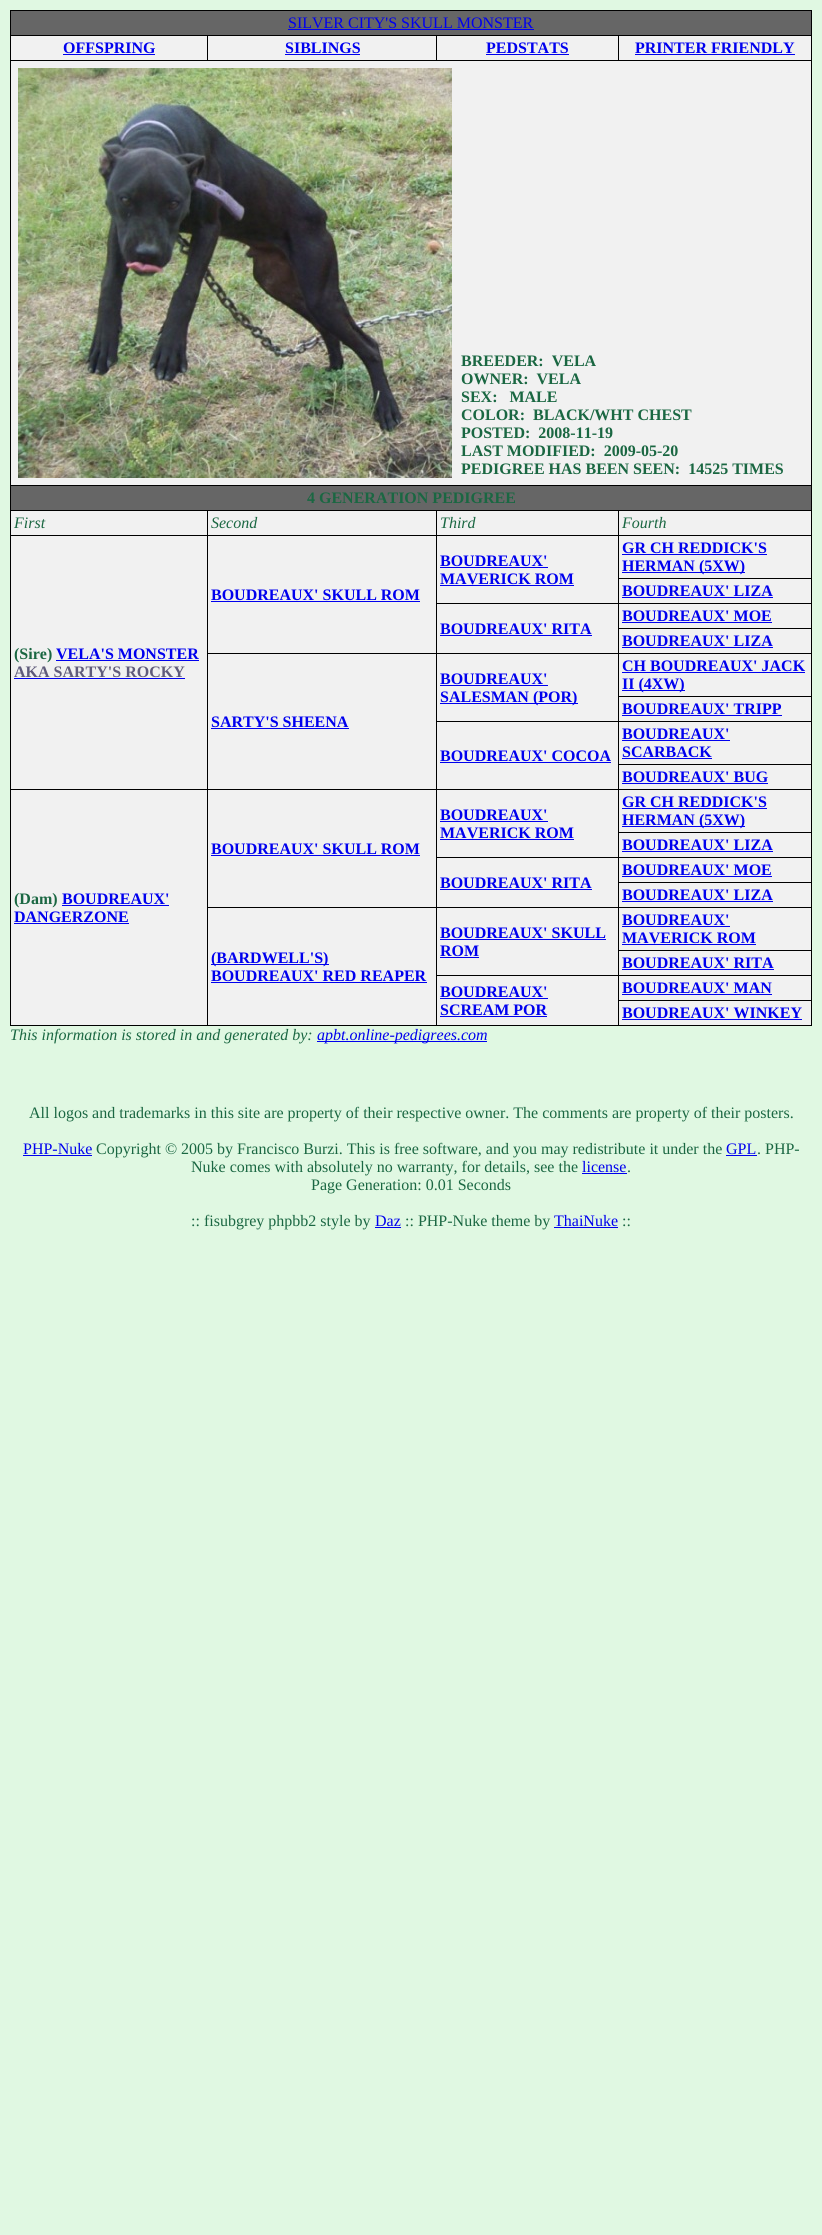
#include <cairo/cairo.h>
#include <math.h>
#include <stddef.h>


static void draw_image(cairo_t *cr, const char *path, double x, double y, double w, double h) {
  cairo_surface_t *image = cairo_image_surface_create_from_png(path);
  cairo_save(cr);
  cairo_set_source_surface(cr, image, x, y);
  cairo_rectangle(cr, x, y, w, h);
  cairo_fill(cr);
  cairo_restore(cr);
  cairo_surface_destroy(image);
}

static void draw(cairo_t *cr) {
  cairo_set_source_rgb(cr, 224 / 255.0, 248 / 255.0, 226 / 255.0);
  cairo_paint(cr);
  cairo_set_source_rgb(cr, 0, 0, 0);
  cairo_rectangle(cr, 10, 10, 802, 1016);
  cairo_fill(cr);
  cairo_set_source_rgb(cr, 102 / 255.0, 102 / 255.0, 102 / 255.0);
  cairo_rectangle(cr, 11, 11, 800, 24);
  cairo_fill(cr);
  cairo_set_source_rgb(cr, 0, 0, 238 / 255.0);
  cairo_rectangle(cr, 288, 29, 246, 1);
  cairo_fill(cr);
  cairo_set_source_rgb(cr, 241 / 255.0, 241 / 255.0, 241 / 255.0);
  cairo_rectangle(cr, 11, 36, 196, 24);
  cairo_fill(cr);
  cairo_set_source_rgb(cr, 0, 0, 238 / 255.0);
  cairo_rectangle(cr, 63, 54, 92, 1);
  cairo_fill(cr);
  cairo_set_source_rgb(cr, 241 / 255.0, 241 / 255.0, 241 / 255.0);
  cairo_rectangle(cr, 208, 36, 228, 24);
  cairo_fill(cr);
  cairo_set_source_rgb(cr, 0, 0, 238 / 255.0);
  cairo_rectangle(cr, 285, 54, 75, 1);
  cairo_fill(cr);
  cairo_set_source_rgb(cr, 241 / 255.0, 241 / 255.0, 241 / 255.0);
  cairo_rectangle(cr, 437, 36, 181, 24);
  cairo_fill(cr);
  cairo_set_source_rgb(cr, 0, 0, 238 / 255.0);
  cairo_rectangle(cr, 486, 54, 83, 1);
  cairo_fill(cr);
  cairo_set_source_rgb(cr, 241 / 255.0, 241 / 255.0, 241 / 255.0);
  cairo_rectangle(cr, 619, 36, 192, 24);
  cairo_fill(cr);
  cairo_set_source_rgb(cr, 0, 0, 238 / 255.0);
  cairo_rectangle(cr, 635, 54, 160, 1);
  cairo_fill(cr);
  cairo_set_source_rgb(cr, 241 / 255.0, 241 / 255.0, 241 / 255.0);
  cairo_rectangle(cr, 11, 61, 800, 424);
  cairo_fill(cr);
  draw_image(cr, "images/1.png", 18, 68, 434, 410);
  cairo_set_source_rgb(cr, 102 / 255.0, 102 / 255.0, 102 / 255.0);
  cairo_rectangle(cr, 11, 486, 800, 24);
  cairo_fill(cr);
  cairo_set_source_rgb(cr, 241 / 255.0, 241 / 255.0, 241 / 255.0);
  cairo_rectangle(cr, 11, 511, 196, 24);
  cairo_fill(cr);
  cairo_rectangle(cr, 208, 511, 228, 24);
  cairo_fill(cr);
  cairo_rectangle(cr, 437, 511, 181, 24);
  cairo_fill(cr);
  cairo_rectangle(cr, 619, 511, 192, 24);
  cairo_fill(cr);
  cairo_rectangle(cr, 437, 536, 181, 67);
  cairo_fill(cr);
  cairo_set_source_rgb(cr, 0, 0, 238 / 255.0);
  cairo_rectangle(cr, 440, 567, 108, 1);
  cairo_fill(cr);
  cairo_rectangle(cr, 440, 585, 134, 1);
  cairo_fill(cr);
  cairo_set_source_rgb(cr, 241 / 255.0, 241 / 255.0, 241 / 255.0);
  cairo_rectangle(cr, 619, 536, 192, 42);
  cairo_fill(cr);
  cairo_set_source_rgb(cr, 0, 0, 238 / 255.0);
  cairo_rectangle(cr, 622, 554, 145, 1);
  cairo_fill(cr);
  cairo_rectangle(cr, 622, 572, 123, 1);
  cairo_fill(cr);
  cairo_set_source_rgb(cr, 241 / 255.0, 241 / 255.0, 241 / 255.0);
  cairo_rectangle(cr, 208, 536, 228, 117);
  cairo_fill(cr);
  cairo_set_source_rgb(cr, 0, 0, 238 / 255.0);
  cairo_rectangle(cr, 211, 601, 209, 1);
  cairo_fill(cr);
  cairo_set_source_rgb(cr, 241 / 255.0, 241 / 255.0, 241 / 255.0);
  cairo_rectangle(cr, 11, 536, 196, 253);
  cairo_fill(cr);
  cairo_set_source_rgb(cr, 0, 0, 238 / 255.0);
  cairo_rectangle(cr, 56, 660, 143, 1);
  cairo_fill(cr);
  cairo_rectangle(cr, 14, 678, 171, 1);
  cairo_fill(cr);
  cairo_set_source_rgb(cr, 241 / 255.0, 241 / 255.0, 241 / 255.0);
  cairo_rectangle(cr, 619, 579, 192, 24);
  cairo_fill(cr);
  cairo_set_source_rgb(cr, 0, 0, 238 / 255.0);
  cairo_rectangle(cr, 622, 597, 151, 1);
  cairo_fill(cr);
  cairo_set_source_rgb(cr, 241 / 255.0, 241 / 255.0, 241 / 255.0);
  cairo_rectangle(cr, 619, 604, 192, 24);
  cairo_fill(cr);
  cairo_set_source_rgb(cr, 0, 0, 238 / 255.0);
  cairo_rectangle(cr, 622, 622, 150, 1);
  cairo_fill(cr);
  cairo_set_source_rgb(cr, 241 / 255.0, 241 / 255.0, 241 / 255.0);
  cairo_rectangle(cr, 437, 604, 181, 49);
  cairo_fill(cr);
  cairo_set_source_rgb(cr, 0, 0, 238 / 255.0);
  cairo_rectangle(cr, 440, 635, 152, 1);
  cairo_fill(cr);
  cairo_set_source_rgb(cr, 241 / 255.0, 241 / 255.0, 241 / 255.0);
  cairo_rectangle(cr, 619, 629, 192, 24);
  cairo_fill(cr);
  cairo_set_source_rgb(cr, 0, 0, 238 / 255.0);
  cairo_rectangle(cr, 622, 647, 151, 1);
  cairo_fill(cr);
  cairo_set_source_rgb(cr, 241 / 255.0, 241 / 255.0, 241 / 255.0);
  cairo_rectangle(cr, 437, 654, 181, 67);
  cairo_fill(cr);
  cairo_set_source_rgb(cr, 0, 0, 238 / 255.0);
  cairo_rectangle(cr, 440, 685, 108, 1);
  cairo_fill(cr);
  cairo_rectangle(cr, 440, 703, 138, 1);
  cairo_fill(cr);
  cairo_set_source_rgb(cr, 241 / 255.0, 241 / 255.0, 241 / 255.0);
  cairo_rectangle(cr, 619, 654, 192, 42);
  cairo_fill(cr);
  cairo_set_source_rgb(cr, 0, 0, 238 / 255.0);
  cairo_rectangle(cr, 622, 672, 183, 1);
  cairo_fill(cr);
  cairo_rectangle(cr, 622, 690, 63, 1);
  cairo_fill(cr);
  cairo_set_source_rgb(cr, 241 / 255.0, 241 / 255.0, 241 / 255.0);
  cairo_rectangle(cr, 208, 654, 228, 135);
  cairo_fill(cr);
  cairo_set_source_rgb(cr, 0, 0, 238 / 255.0);
  cairo_rectangle(cr, 211, 728, 138, 1);
  cairo_fill(cr);
  cairo_set_source_rgb(cr, 241 / 255.0, 241 / 255.0, 241 / 255.0);
  cairo_rectangle(cr, 619, 697, 192, 24);
  cairo_fill(cr);
  cairo_set_source_rgb(cr, 0, 0, 238 / 255.0);
  cairo_rectangle(cr, 622, 715, 160, 1);
  cairo_fill(cr);
  cairo_set_source_rgb(cr, 241 / 255.0, 241 / 255.0, 241 / 255.0);
  cairo_rectangle(cr, 437, 722, 181, 67);
  cairo_fill(cr);
  cairo_set_source_rgb(cr, 0, 0, 238 / 255.0);
  cairo_rectangle(cr, 440, 762, 171, 1);
  cairo_fill(cr);
  cairo_set_source_rgb(cr, 241 / 255.0, 241 / 255.0, 241 / 255.0);
  cairo_rectangle(cr, 619, 722, 192, 42);
  cairo_fill(cr);
  cairo_set_source_rgb(cr, 0, 0, 238 / 255.0);
  cairo_rectangle(cr, 622, 740, 108, 1);
  cairo_fill(cr);
  cairo_rectangle(cr, 622, 758, 90, 1);
  cairo_fill(cr);
  cairo_set_source_rgb(cr, 241 / 255.0, 241 / 255.0, 241 / 255.0);
  cairo_rectangle(cr, 619, 765, 192, 24);
  cairo_fill(cr);
  cairo_set_source_rgb(cr, 0, 0, 238 / 255.0);
  cairo_rectangle(cr, 622, 783, 146, 1);
  cairo_fill(cr);
  cairo_set_source_rgb(cr, 241 / 255.0, 241 / 255.0, 241 / 255.0);
  cairo_rectangle(cr, 437, 790, 181, 67);
  cairo_fill(cr);
  cairo_set_source_rgb(cr, 0, 0, 238 / 255.0);
  cairo_rectangle(cr, 440, 821, 108, 1);
  cairo_fill(cr);
  cairo_rectangle(cr, 440, 839, 134, 1);
  cairo_fill(cr);
  cairo_set_source_rgb(cr, 241 / 255.0, 241 / 255.0, 241 / 255.0);
  cairo_rectangle(cr, 619, 790, 192, 42);
  cairo_fill(cr);
  cairo_set_source_rgb(cr, 0, 0, 238 / 255.0);
  cairo_rectangle(cr, 622, 808, 145, 1);
  cairo_fill(cr);
  cairo_rectangle(cr, 622, 826, 123, 1);
  cairo_fill(cr);
  cairo_set_source_rgb(cr, 241 / 255.0, 241 / 255.0, 241 / 255.0);
  cairo_rectangle(cr, 208, 790, 228, 117);
  cairo_fill(cr);
  cairo_set_source_rgb(cr, 0, 0, 238 / 255.0);
  cairo_rectangle(cr, 211, 855, 209, 1);
  cairo_fill(cr);
  cairo_set_source_rgb(cr, 241 / 255.0, 241 / 255.0, 241 / 255.0);
  cairo_rectangle(cr, 11, 790, 196, 235);
  cairo_fill(cr);
  cairo_set_source_rgb(cr, 0, 0, 238 / 255.0);
  cairo_rectangle(cr, 62, 905, 107, 1);
  cairo_fill(cr);
  cairo_rectangle(cr, 14, 923, 115, 1);
  cairo_fill(cr);
  cairo_set_source_rgb(cr, 241 / 255.0, 241 / 255.0, 241 / 255.0);
  cairo_rectangle(cr, 619, 833, 192, 24);
  cairo_fill(cr);
  cairo_set_source_rgb(cr, 0, 0, 238 / 255.0);
  cairo_rectangle(cr, 622, 851, 151, 1);
  cairo_fill(cr);
  cairo_set_source_rgb(cr, 241 / 255.0, 241 / 255.0, 241 / 255.0);
  cairo_rectangle(cr, 619, 858, 192, 24);
  cairo_fill(cr);
  cairo_set_source_rgb(cr, 0, 0, 238 / 255.0);
  cairo_rectangle(cr, 622, 876, 150, 1);
  cairo_fill(cr);
  cairo_set_source_rgb(cr, 241 / 255.0, 241 / 255.0, 241 / 255.0);
  cairo_rectangle(cr, 437, 858, 181, 49);
  cairo_fill(cr);
  cairo_set_source_rgb(cr, 0, 0, 238 / 255.0);
  cairo_rectangle(cr, 440, 889, 152, 1);
  cairo_fill(cr);
  cairo_set_source_rgb(cr, 241 / 255.0, 241 / 255.0, 241 / 255.0);
  cairo_rectangle(cr, 619, 883, 192, 24);
  cairo_fill(cr);
  cairo_set_source_rgb(cr, 0, 0, 238 / 255.0);
  cairo_rectangle(cr, 622, 901, 151, 1);
  cairo_fill(cr);
  cairo_set_source_rgb(cr, 241 / 255.0, 241 / 255.0, 241 / 255.0);
  cairo_rectangle(cr, 437, 908, 181, 67);
  cairo_fill(cr);
  cairo_set_source_rgb(cr, 0, 0, 238 / 255.0);
  cairo_rectangle(cr, 440, 939, 166, 1);
  cairo_fill(cr);
  cairo_rectangle(cr, 440, 957, 39, 1);
  cairo_fill(cr);
  cairo_set_source_rgb(cr, 241 / 255.0, 241 / 255.0, 241 / 255.0);
  cairo_rectangle(cr, 619, 908, 192, 42);
  cairo_fill(cr);
  cairo_set_source_rgb(cr, 0, 0, 238 / 255.0);
  cairo_rectangle(cr, 622, 926, 108, 1);
  cairo_fill(cr);
  cairo_rectangle(cr, 622, 944, 134, 1);
  cairo_fill(cr);
  cairo_set_source_rgb(cr, 241 / 255.0, 241 / 255.0, 241 / 255.0);
  cairo_rectangle(cr, 208, 908, 228, 117);
  cairo_fill(cr);
  cairo_set_source_rgb(cr, 0, 0, 238 / 255.0);
  cairo_rectangle(cr, 211, 964, 118, 1);
  cairo_fill(cr);
  cairo_rectangle(cr, 211, 982, 216, 1);
  cairo_fill(cr);
  cairo_set_source_rgb(cr, 241 / 255.0, 241 / 255.0, 241 / 255.0);
  cairo_rectangle(cr, 619, 951, 192, 24);
  cairo_fill(cr);
  cairo_set_source_rgb(cr, 0, 0, 238 / 255.0);
  cairo_rectangle(cr, 622, 969, 152, 1);
  cairo_fill(cr);
  cairo_set_source_rgb(cr, 241 / 255.0, 241 / 255.0, 241 / 255.0);
  cairo_rectangle(cr, 437, 976, 181, 49);
  cairo_fill(cr);
  cairo_set_source_rgb(cr, 0, 0, 238 / 255.0);
  cairo_rectangle(cr, 440, 998, 108, 1);
  cairo_fill(cr);
  cairo_rectangle(cr, 440, 1016, 107, 1);
  cairo_fill(cr);
  cairo_set_source_rgb(cr, 241 / 255.0, 241 / 255.0, 241 / 255.0);
  cairo_rectangle(cr, 619, 976, 192, 24);
  cairo_fill(cr);
  cairo_set_source_rgb(cr, 0, 0, 238 / 255.0);
  cairo_rectangle(cr, 622, 994, 150, 1);
  cairo_fill(cr);
  cairo_set_source_rgb(cr, 241 / 255.0, 241 / 255.0, 241 / 255.0);
  cairo_rectangle(cr, 619, 1001, 192, 24);
  cairo_fill(cr);
  cairo_set_source_rgb(cr, 0, 0, 238 / 255.0);
  cairo_rectangle(cr, 622, 1019, 180, 1);
  cairo_fill(cr);
  cairo_rectangle(cr, 317, 1041, 170, 1);
  cairo_fill(cr);
  cairo_rectangle(cr, 23, 1155, 69, 1);
  cairo_fill(cr);
  cairo_rectangle(cr, 726, 1155, 31, 1);
  cairo_fill(cr);
  cairo_rectangle(cr, 582, 1173, 45, 1);
  cairo_fill(cr);
  cairo_rectangle(cr, 375, 1227, 26, 1);
  cairo_fill(cr);
  cairo_rectangle(cr, 554, 1227, 64, 1);
  cairo_fill(cr);
  cairo_select_font_face(cr, "Liberation Serif", CAIRO_FONT_SLANT_NORMAL, CAIRO_FONT_WEIGHT_NORMAL);
  cairo_set_font_size(cr, 16);
  cairo_move_to(cr, 288, 28);
  cairo_show_text(cr, "SILVER CITY'S SKULL MONSTER");
  cairo_select_font_face(cr, "Liberation Serif", CAIRO_FONT_SLANT_NORMAL, CAIRO_FONT_WEIGHT_BOLD);
  cairo_move_to(cr, 63, 53);
  cairo_show_text(cr, "OFFSPRING");
  cairo_move_to(cr, 285, 53);
  cairo_show_text(cr, "SIBLINGS");
  cairo_move_to(cr, 486, 53);
  cairo_show_text(cr, "PEDSTATS");
  cairo_move_to(cr, 635, 53);
  cairo_show_text(cr, "PRINTER FRIENDLY");
  cairo_set_source_rgb(cr, 26 / 255.0, 103 / 255.0, 66 / 255.0);
  cairo_move_to(cr, 461, 366);
  cairo_show_text(cr, "BREEDER:  VELA");
  cairo_move_to(cr, 461, 384);
  cairo_show_text(cr, "OWNER:  VELA");
  cairo_move_to(cr, 461, 402);
  cairo_show_text(cr, "SEX:   MALE");
  cairo_move_to(cr, 461, 420);
  cairo_show_text(cr, "COLOR:  BLACK/WHT CHEST");
  cairo_move_to(cr, 461, 438);
  cairo_show_text(cr, "POSTED:  2008-11-19");
  cairo_move_to(cr, 461, 456);
  cairo_show_text(cr, "LAST MODIFIED:  2009-05-20");
  cairo_move_to(cr, 461, 474);
  cairo_show_text(cr, "PEDIGREE HAS BEEN SEEN:  14525 TIMES");
  cairo_move_to(cr, 307, 503);
  cairo_show_text(cr, "4 GENERATION PEDIGREE");
  cairo_select_font_face(cr, "Liberation Serif", CAIRO_FONT_SLANT_ITALIC, CAIRO_FONT_WEIGHT_NORMAL);
  cairo_move_to(cr, 14, 528);
  cairo_show_text(cr, "First");
  cairo_move_to(cr, 211, 528);
  cairo_show_text(cr, "Second");
  cairo_move_to(cr, 440, 528);
  cairo_show_text(cr, "Third");
  cairo_move_to(cr, 622, 528);
  cairo_show_text(cr, "Fourth");
  cairo_select_font_face(cr, "Liberation Serif", CAIRO_FONT_SLANT_NORMAL, CAIRO_FONT_WEIGHT_BOLD);
  cairo_set_source_rgb(cr, 0, 0, 238 / 255.0);
  cairo_move_to(cr, 440, 566);
  cairo_show_text(cr, "BOUDREAUX'");
  cairo_move_to(cr, 440, 584);
  cairo_show_text(cr, "MAVERICK ROM");
  cairo_move_to(cr, 622, 553);
  cairo_show_text(cr, "GR CH REDDICK'S");
  cairo_move_to(cr, 622, 571);
  cairo_show_text(cr, "HERMAN (5XW)");
  cairo_move_to(cr, 211, 600);
  cairo_show_text(cr, "BOUDREAUX' SKULL ROM");
  cairo_set_source_rgb(cr, 26 / 255.0, 103 / 255.0, 66 / 255.0);
  cairo_move_to(cr, 14, 659);
  cairo_show_text(cr, "(Sire)");
  cairo_set_source_rgb(cr, 0, 0, 238 / 255.0);
  cairo_move_to(cr, 56, 659);
  cairo_show_text(cr, "VELA'S MONSTER");
  cairo_set_source_rgb(cr, 95 / 255.0, 91 / 255.0, 122 / 255.0);
  cairo_move_to(cr, 14, 677);
  cairo_show_text(cr, "AKA SARTY'S ROCKY");
  cairo_set_source_rgb(cr, 0, 0, 238 / 255.0);
  cairo_move_to(cr, 622, 596);
  cairo_show_text(cr, "BOUDREAUX' LIZA");
  cairo_move_to(cr, 622, 621);
  cairo_show_text(cr, "BOUDREAUX' MOE");
  cairo_move_to(cr, 440, 634);
  cairo_show_text(cr, "BOUDREAUX' RITA");
  cairo_move_to(cr, 622, 646);
  cairo_show_text(cr, "BOUDREAUX' LIZA");
  cairo_move_to(cr, 440, 684);
  cairo_show_text(cr, "BOUDREAUX'");
  cairo_move_to(cr, 440, 702);
  cairo_show_text(cr, "SALESMAN (POR)");
  cairo_move_to(cr, 622, 671);
  cairo_show_text(cr, "CH BOUDREAUX' JACK");
  cairo_move_to(cr, 622, 689);
  cairo_show_text(cr, "II (4XW)");
  cairo_move_to(cr, 211, 727);
  cairo_show_text(cr, "SARTY'S SHEENA");
  cairo_move_to(cr, 622, 714);
  cairo_show_text(cr, "BOUDREAUX' TRIPP");
  cairo_move_to(cr, 440, 761);
  cairo_show_text(cr, "BOUDREAUX' COCOA");
  cairo_move_to(cr, 622, 739);
  cairo_show_text(cr, "BOUDREAUX'");
  cairo_move_to(cr, 622, 757);
  cairo_show_text(cr, "SCARBACK");
  cairo_move_to(cr, 622, 782);
  cairo_show_text(cr, "BOUDREAUX' BUG");
  cairo_move_to(cr, 440, 820);
  cairo_show_text(cr, "BOUDREAUX'");
  cairo_move_to(cr, 440, 838);
  cairo_show_text(cr, "MAVERICK ROM");
  cairo_move_to(cr, 622, 807);
  cairo_show_text(cr, "GR CH REDDICK'S");
  cairo_move_to(cr, 622, 825);
  cairo_show_text(cr, "HERMAN (5XW)");
  cairo_move_to(cr, 211, 854);
  cairo_show_text(cr, "BOUDREAUX' SKULL ROM");
  cairo_set_source_rgb(cr, 26 / 255.0, 103 / 255.0, 66 / 255.0);
  cairo_move_to(cr, 14, 904);
  cairo_show_text(cr, "(Dam)");
  cairo_set_source_rgb(cr, 0, 0, 238 / 255.0);
  cairo_move_to(cr, 62, 904);
  cairo_show_text(cr, "BOUDREAUX'");
  cairo_move_to(cr, 14, 922);
  cairo_show_text(cr, "DANGERZONE");
  cairo_move_to(cr, 622, 850);
  cairo_show_text(cr, "BOUDREAUX' LIZA");
  cairo_move_to(cr, 622, 875);
  cairo_show_text(cr, "BOUDREAUX' MOE");
  cairo_move_to(cr, 440, 888);
  cairo_show_text(cr, "BOUDREAUX' RITA");
  cairo_move_to(cr, 622, 900);
  cairo_show_text(cr, "BOUDREAUX' LIZA");
  cairo_move_to(cr, 440, 938);
  cairo_show_text(cr, "BOUDREAUX' SKULL");
  cairo_move_to(cr, 440, 956);
  cairo_show_text(cr, "ROM");
  cairo_move_to(cr, 622, 925);
  cairo_show_text(cr, "BOUDREAUX'");
  cairo_move_to(cr, 622, 943);
  cairo_show_text(cr, "MAVERICK ROM");
  cairo_move_to(cr, 211, 963);
  cairo_show_text(cr, "(BARDWELL'S)");
  cairo_move_to(cr, 211, 981);
  cairo_show_text(cr, "BOUDREAUX' RED REAPER");
  cairo_move_to(cr, 622, 968);
  cairo_show_text(cr, "BOUDREAUX' RITA");
  cairo_move_to(cr, 440, 997);
  cairo_show_text(cr, "BOUDREAUX'");
  cairo_move_to(cr, 440, 1015);
  cairo_show_text(cr, "SCREAM POR");
  cairo_move_to(cr, 622, 993);
  cairo_show_text(cr, "BOUDREAUX' MAN");
  cairo_move_to(cr, 622, 1018);
  cairo_show_text(cr, "BOUDREAUX' WINKEY");
  cairo_select_font_face(cr, "Liberation Serif", CAIRO_FONT_SLANT_ITALIC, CAIRO_FONT_WEIGHT_NORMAL);
  cairo_set_source_rgb(cr, 26 / 255.0, 103 / 255.0, 66 / 255.0);
  cairo_move_to(cr, 10, 1040);
  cairo_show_text(cr, "This information is stored in and generated by:");
  cairo_set_source_rgb(cr, 0, 0, 238 / 255.0);
  cairo_move_to(cr, 317, 1040);
  cairo_show_text(cr, "apbt.online-pedigrees.com");
  cairo_select_font_face(cr, "Liberation Serif", CAIRO_FONT_SLANT_NORMAL, CAIRO_FONT_WEIGHT_NORMAL);
  cairo_set_source_rgb(cr, 26 / 255.0, 103 / 255.0, 66 / 255.0);
  cairo_move_to(cr, 29, 1118);
  cairo_show_text(cr, "All logos and trademarks in this site are property of their respective owner. The comments are property of their posters.");
  cairo_set_source_rgb(cr, 0, 0, 238 / 255.0);
  cairo_move_to(cr, 23, 1154);
  cairo_show_text(cr, "PHP-Nuke");
  cairo_set_source_rgb(cr, 26 / 255.0, 103 / 255.0, 66 / 255.0);
  cairo_move_to(cr, 96, 1154);
  cairo_show_text(cr, "Copyright © 2005 by Francisco Burzi. This is free software, and you may redistribute it under the");
  cairo_set_source_rgb(cr, 0, 0, 238 / 255.0);
  cairo_move_to(cr, 726, 1154);
  cairo_show_text(cr, "GPL");
  cairo_set_source_rgb(cr, 26 / 255.0, 103 / 255.0, 66 / 255.0);
  cairo_move_to(cr, 757, 1154);
  cairo_show_text(cr, ". PHP-");
  cairo_move_to(cr, 191, 1172);
  cairo_show_text(cr, "Nuke comes with absolutely no warranty, for details, see the");
  cairo_set_source_rgb(cr, 0, 0, 238 / 255.0);
  cairo_move_to(cr, 582, 1172);
  cairo_show_text(cr, "license");
  cairo_set_source_rgb(cr, 26 / 255.0, 103 / 255.0, 66 / 255.0);
  cairo_move_to(cr, 627, 1172);
  cairo_show_text(cr, ".");
  cairo_move_to(cr, 311, 1190);
  cairo_show_text(cr, "Page Generation: 0.01 Seconds");
  cairo_move_to(cr, 191, 1226);
  cairo_show_text(cr, ":: fisubgrey phpbb2 style by");
  cairo_set_source_rgb(cr, 0, 0, 238 / 255.0);
  cairo_move_to(cr, 375, 1226);
  cairo_show_text(cr, "Daz");
  cairo_set_source_rgb(cr, 26 / 255.0, 103 / 255.0, 66 / 255.0);
  cairo_move_to(cr, 405, 1226);
  cairo_show_text(cr, ":: PHP-Nuke theme by");
  cairo_set_source_rgb(cr, 0, 0, 238 / 255.0);
  cairo_move_to(cr, 554, 1226);
  cairo_show_text(cr, "ThaiNuke");
  cairo_set_source_rgb(cr, 26 / 255.0, 103 / 255.0, 66 / 255.0);
  cairo_move_to(cr, 622, 1226);
  cairo_show_text(cr, "::");
}

int main(void) {
  cairo_surface_t *surface = cairo_image_surface_create(CAIRO_FORMAT_RGB24, 822, 2235);
  cairo_t *cr = cairo_create(surface);
  cairo_font_options_t *options = cairo_font_options_create();
  cairo_font_options_set_hint_metrics(options, CAIRO_HINT_METRICS_OFF);
  cairo_font_options_set_hint_style(options, CAIRO_HINT_STYLE_NONE);
  cairo_set_font_options(cr, options);
  cairo_set_miter_limit(cr, 4);
  draw(cr);
  cairo_surface_write_to_png(surface, "out.png");
  cairo_font_options_destroy(options);
  cairo_destroy(cr);
  cairo_surface_destroy(surface);
  return 0;
}
